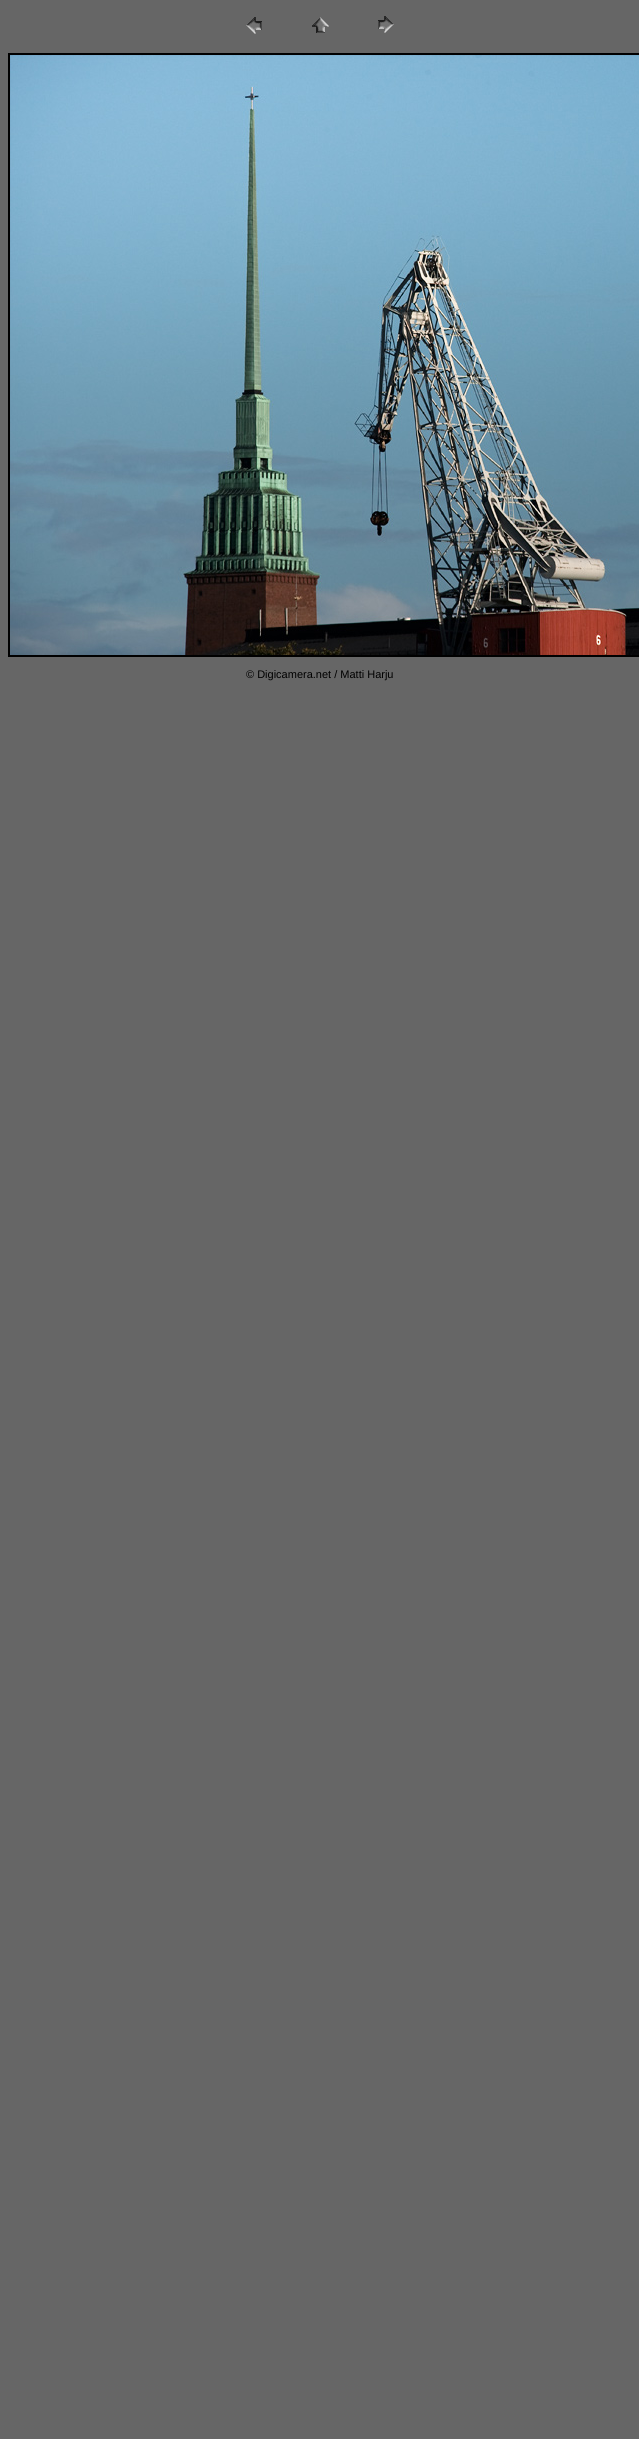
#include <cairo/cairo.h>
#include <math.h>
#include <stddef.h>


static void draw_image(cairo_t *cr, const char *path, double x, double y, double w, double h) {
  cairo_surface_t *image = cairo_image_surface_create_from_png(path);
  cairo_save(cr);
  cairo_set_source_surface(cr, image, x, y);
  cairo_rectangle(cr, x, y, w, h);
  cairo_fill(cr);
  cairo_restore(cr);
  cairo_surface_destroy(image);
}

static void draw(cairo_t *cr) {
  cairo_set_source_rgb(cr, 102 / 255.0, 102 / 255.0, 102 / 255.0);
  cairo_paint(cr);
  draw_image(cr, "images/1.png", 246, 17, 16, 17);
  draw_image(cr, "images/2.png", 312, 17, 17, 16);
  draw_image(cr, "images/3.png", 378, 16, 16, 17);
  cairo_rectangle(cr, 9, 54, 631, 602);
  cairo_set_source_rgb(cr, 0, 0, 0);
  cairo_stroke(cr);
  draw_image(cr, "images/4.png", 10, 55, 629, 600);
  cairo_select_font_face(cr, "Liberation Sans", CAIRO_FONT_SLANT_NORMAL, CAIRO_FONT_WEIGHT_NORMAL);
  cairo_set_font_size(cr, 11);
  cairo_move_to(cr, 246, 678);
  cairo_show_text(cr, "© Digicamera.net / Matti Harju");
}

int main(void) {
  cairo_surface_t *surface = cairo_image_surface_create(CAIRO_FORMAT_RGB24, 639, 2439);
  cairo_t *cr = cairo_create(surface);
  cairo_font_options_t *options = cairo_font_options_create();
  cairo_font_options_set_hint_metrics(options, CAIRO_HINT_METRICS_OFF);
  cairo_font_options_set_hint_style(options, CAIRO_HINT_STYLE_NONE);
  cairo_set_font_options(cr, options);
  cairo_set_miter_limit(cr, 4);
  draw(cr);
  cairo_surface_write_to_png(surface, "out.png");
  cairo_font_options_destroy(options);
  cairo_destroy(cr);
  cairo_surface_destroy(surface);
  return 0;
}
